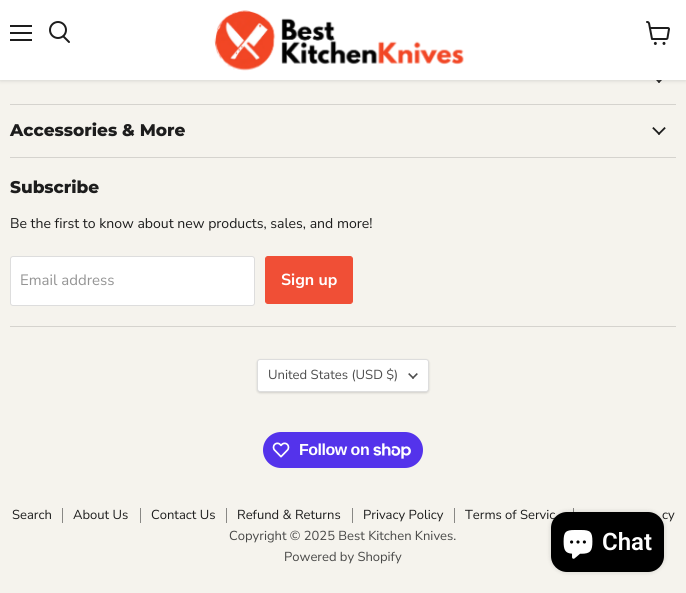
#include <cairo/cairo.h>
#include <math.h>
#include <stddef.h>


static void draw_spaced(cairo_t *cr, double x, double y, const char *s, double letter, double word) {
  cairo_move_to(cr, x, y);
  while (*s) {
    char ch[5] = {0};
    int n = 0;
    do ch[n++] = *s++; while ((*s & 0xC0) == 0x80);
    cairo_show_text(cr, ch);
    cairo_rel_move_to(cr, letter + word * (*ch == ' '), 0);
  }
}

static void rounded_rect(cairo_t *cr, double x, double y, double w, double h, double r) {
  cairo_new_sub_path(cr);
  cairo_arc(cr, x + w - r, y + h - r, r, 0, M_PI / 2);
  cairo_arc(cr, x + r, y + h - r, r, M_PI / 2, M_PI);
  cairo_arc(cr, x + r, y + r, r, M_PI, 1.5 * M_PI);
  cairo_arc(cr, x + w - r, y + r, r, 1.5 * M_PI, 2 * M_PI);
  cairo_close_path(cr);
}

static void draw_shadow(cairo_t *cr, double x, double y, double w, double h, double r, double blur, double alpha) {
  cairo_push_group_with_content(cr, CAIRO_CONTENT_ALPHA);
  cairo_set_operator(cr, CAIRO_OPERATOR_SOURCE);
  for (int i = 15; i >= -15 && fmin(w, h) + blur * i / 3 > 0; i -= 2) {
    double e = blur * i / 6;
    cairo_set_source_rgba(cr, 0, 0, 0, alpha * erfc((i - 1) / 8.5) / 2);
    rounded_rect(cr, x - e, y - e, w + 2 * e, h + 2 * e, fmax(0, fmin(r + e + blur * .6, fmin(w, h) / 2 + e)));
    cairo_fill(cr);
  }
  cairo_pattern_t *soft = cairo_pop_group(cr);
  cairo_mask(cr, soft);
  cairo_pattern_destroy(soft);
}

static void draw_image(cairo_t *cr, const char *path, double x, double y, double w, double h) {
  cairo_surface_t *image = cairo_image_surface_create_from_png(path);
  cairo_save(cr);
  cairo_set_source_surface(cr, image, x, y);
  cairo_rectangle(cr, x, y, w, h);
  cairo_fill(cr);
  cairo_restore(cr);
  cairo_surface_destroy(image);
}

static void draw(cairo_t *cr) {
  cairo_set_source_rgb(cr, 245 / 255.0, 243 / 255.0, 237 / 255.0);
  cairo_paint(cr);
  draw_image(cr, "images/3.png", 656, 80, 6, 3);
  cairo_set_source_rgb(cr, 128 / 255.0, 128 / 255.0, 128 / 255.0);
  draw_shadow(cr, 0, 1, 686, 80, 0, 2, 0.25);
  cairo_set_source_rgb(cr, 1, 1, 1);
  cairo_rectangle(cr, 0, 0, 686, 80);
  cairo_fill(cr);
  cairo_set_source_rgb(cr, 29 / 255.0, 29 / 255.0, 29 / 255.0);
  cairo_rectangle(cr, 10, 25, 22, 2);
  cairo_fill(cr);
  cairo_rectangle(cr, 10, 32, 22, 2);
  cairo_fill(cr);
  cairo_rectangle(cr, 10, 39, 22, 2);
  cairo_fill(cr);
  cairo_new_path(cr);
  cairo_move_to(cr, 69, 42);
  cairo_line_to(cr, 63.5, 36.5);
  cairo_set_line_cap(cr, CAIRO_LINE_CAP_ROUND);
  cairo_stroke(cr);
  cairo_arc(cr, 58, 30, 8, 0, 2 * M_PI);
  cairo_set_line_cap(cr, CAIRO_LINE_CAP_BUTT);
  cairo_stroke(cr);
  draw_image(cr, "images/1.png", 214, 10, 250, 61);
  draw_image(cr, "images/2.png", 646, 21, 24, 24);
  cairo_set_source_rgb(cr, 213 / 255.0, 211 / 255.0, 206 / 255.0);
  cairo_rectangle(cr, 10, 104, 666, 1);
  cairo_fill(cr);
  cairo_rectangle(cr, 10, 157, 666, 1);
  cairo_fill(cr);
  draw_image(cr, "images/4.png", 652, 127, 14, 8);
  cairo_rectangle(cr, 10, 326, 666, 1);
  cairo_fill(cr);
  cairo_set_source_rgb(cr, 1, 1, 1);
  rounded_rect(cr, 10.5, 256.5, 244, 49, 2.5);
  cairo_fill_preserve(cr);
  cairo_set_source_rgb(cr, 221 / 255.0, 221 / 255.0, 221 / 255.0);
  cairo_set_line_width(cr, 1);
  cairo_stroke(cr);
  cairo_set_source_rgb(cr, 240 / 255.0, 79 / 255.0, 54 / 255.0);
  rounded_rect(cr, 265.5, 256.5, 87, 47, 2.5);
  cairo_fill_preserve(cr);
  cairo_stroke(cr);
  cairo_set_source_rgb(cr, 0, 0, 0);
  draw_shadow(cr, 257, 360, 172, 33, 3, 1, 0.15);
  cairo_set_source_rgb(cr, 1, 1, 1);
  rounded_rect(cr, 257.5, 359.5, 171, 32, 2.5);
  cairo_fill_preserve(cr);
  cairo_set_source_rgb(cr, 221 / 255.0, 221 / 255.0, 221 / 255.0);
  cairo_stroke(cr);
  draw_image(cr, "images/5.png", 408, 373, 10, 6);
  cairo_set_source_rgb(cr, 84 / 255.0, 51 / 255.0, 235 / 255.0);
  rounded_rect(cr, 263, 432, 160, 36, 18);
  cairo_fill(cr);
  draw_image(cr, "images/6.png", 272, 442, 18, 16);
  draw_image(cr, "images/7.png", 373, 443, 38, 16);
  cairo_set_source_rgb(cr, 137 / 255.0, 136 / 255.0, 133 / 255.0);
  cairo_rectangle(cr, 62, 508, 1, 15);
  cairo_fill(cr);
  cairo_rectangle(cr, 140, 508, 1, 15);
  cairo_fill(cr);
  cairo_rectangle(cr, 226, 508, 1, 15);
  cairo_fill(cr);
  cairo_rectangle(cr, 352, 508, 1, 15);
  cairo_fill(cr);
  cairo_rectangle(cr, 454, 508, 1, 15);
  cairo_fill(cr);
  cairo_rectangle(cr, 573, 508, 1, 4);
  cairo_fill(cr);
  cairo_set_source_rgb(cr, 0, 0, 0);
  draw_shadow(cr, 551, 512, 113, 60, 16, 2.5, 0.15);
  cairo_select_font_face(cr, "Montserrat ExtraBold", CAIRO_FONT_SLANT_NORMAL, CAIRO_FONT_WEIGHT_NORMAL);
  cairo_set_font_size(cr, 16.9);
  cairo_set_source_rgb(cr, 29 / 255.0, 29 / 255.0, 29 / 255.0);
  cairo_move_to(cr, 10, 136);
  cairo_show_text(cr, "Accessories & More");
  cairo_move_to(cr, 10, 193);
  cairo_show_text(cr, "Subscribe");
  cairo_select_font_face(cr, "Nunito Sans", CAIRO_FONT_SLANT_NORMAL, CAIRO_FONT_WEIGHT_NORMAL);
  cairo_set_font_size(cr, 14.05);
  cairo_move_to(cr, 10, 228);
  cairo_show_text(cr, "Be the first to know about new products, sales, and more!");
  cairo_set_font_size(cr, 15);
  cairo_set_source_rgb(cr, 148 / 255.0, 148 / 255.0, 148 / 255.0);
  cairo_move_to(cr, 20, 285);
  cairo_show_text(cr, "Email address");
  cairo_select_font_face(cr, "Nunito Sans", CAIRO_FONT_SLANT_NORMAL, CAIRO_FONT_WEIGHT_BOLD);
  cairo_set_font_size(cr, 16);
  cairo_set_source_rgb(cr, 1, 1, 1);
  cairo_move_to(cr, 281, 285);
  cairo_show_text(cr, "Sign up");
  cairo_select_font_face(cr, "Nunito Sans", CAIRO_FONT_SLANT_NORMAL, CAIRO_FONT_WEIGHT_NORMAL);
  cairo_set_font_size(cr, 13.1);
  cairo_set_source_rgb(cr, 77 / 255.0, 77 / 255.0, 77 / 255.0);
  cairo_move_to(cr, 268, 379);
  cairo_show_text(cr, "United States (USD $)");
  cairo_select_font_face(cr, "Liberation Sans", CAIRO_FONT_SLANT_NORMAL, CAIRO_FONT_WEIGHT_BOLD);
  cairo_set_font_size(cr, 16);
  cairo_set_source_rgb(cr, 1, 1, 1);
  draw_spaced(cr, 299, 455, "Follow on", -0.5, 0);
  cairo_select_font_face(cr, "Nunito Sans", CAIRO_FONT_SLANT_NORMAL, CAIRO_FONT_WEIGHT_NORMAL);
  cairo_set_font_size(cr, 13);
  cairo_set_source_rgb(cr, 29 / 255.0, 29 / 255.0, 29 / 255.0);
  cairo_move_to(cr, 12, 519);
  cairo_show_text(cr, "Search");
  cairo_move_to(cr, 73, 519);
  cairo_show_text(cr, "About Us");
  cairo_move_to(cr, 151, 519);
  cairo_show_text(cr, "Contact Us");
  cairo_move_to(cr, 237, 519);
  cairo_show_text(cr, "Refund & Returns");
  cairo_move_to(cr, 363, 519);
  cairo_show_text(cr, "Privacy Policy");
  cairo_move_to(cr, 465, 519);
  cairo_show_text(cr, "Terms of Servic");
  cairo_move_to(cr, 662, 519);
  cairo_show_text(cr, "cy");
  cairo_set_source_rgb(cr, 72 / 255.0, 72 / 255.0, 71 / 255.0);
  cairo_move_to(cr, 229, 540);
  cairo_show_text(cr, "Copyright © 2025 Best Kitchen Knives.");
  cairo_move_to(cr, 284, 561);
  cairo_show_text(cr, "Powered by Shopify");
  cairo_set_source_rgb(cr, 0, 0, 0);
  rounded_rect(cr, 551, 512, 113, 60, 16);
  cairo_fill(cr);
  draw_image(cr, "images/8.png", 563, 530, 30, 29);
  cairo_select_font_face(cr, "Roboto SemiBold", CAIRO_FONT_SLANT_NORMAL, CAIRO_FONT_WEIGHT_NORMAL);
  cairo_set_font_size(cr, 24);
  cairo_set_source_rgb(cr, 1, 1, 1);
  cairo_move_to(cr, 602, 550);
  cairo_show_text(cr, "Chat");
}

int main(void) {
  cairo_surface_t *surface = cairo_image_surface_create(CAIRO_FORMAT_RGB24, 686, 593);
  cairo_t *cr = cairo_create(surface);
  cairo_font_options_t *options = cairo_font_options_create();
  cairo_font_options_set_hint_metrics(options, CAIRO_HINT_METRICS_OFF);
  cairo_font_options_set_hint_style(options, CAIRO_HINT_STYLE_NONE);
  cairo_set_font_options(cr, options);
  cairo_set_miter_limit(cr, 4);
  draw(cr);
  cairo_surface_write_to_png(surface, "out.png");
  cairo_font_options_destroy(options);
  cairo_destroy(cr);
  cairo_surface_destroy(surface);
  return 0;
}
